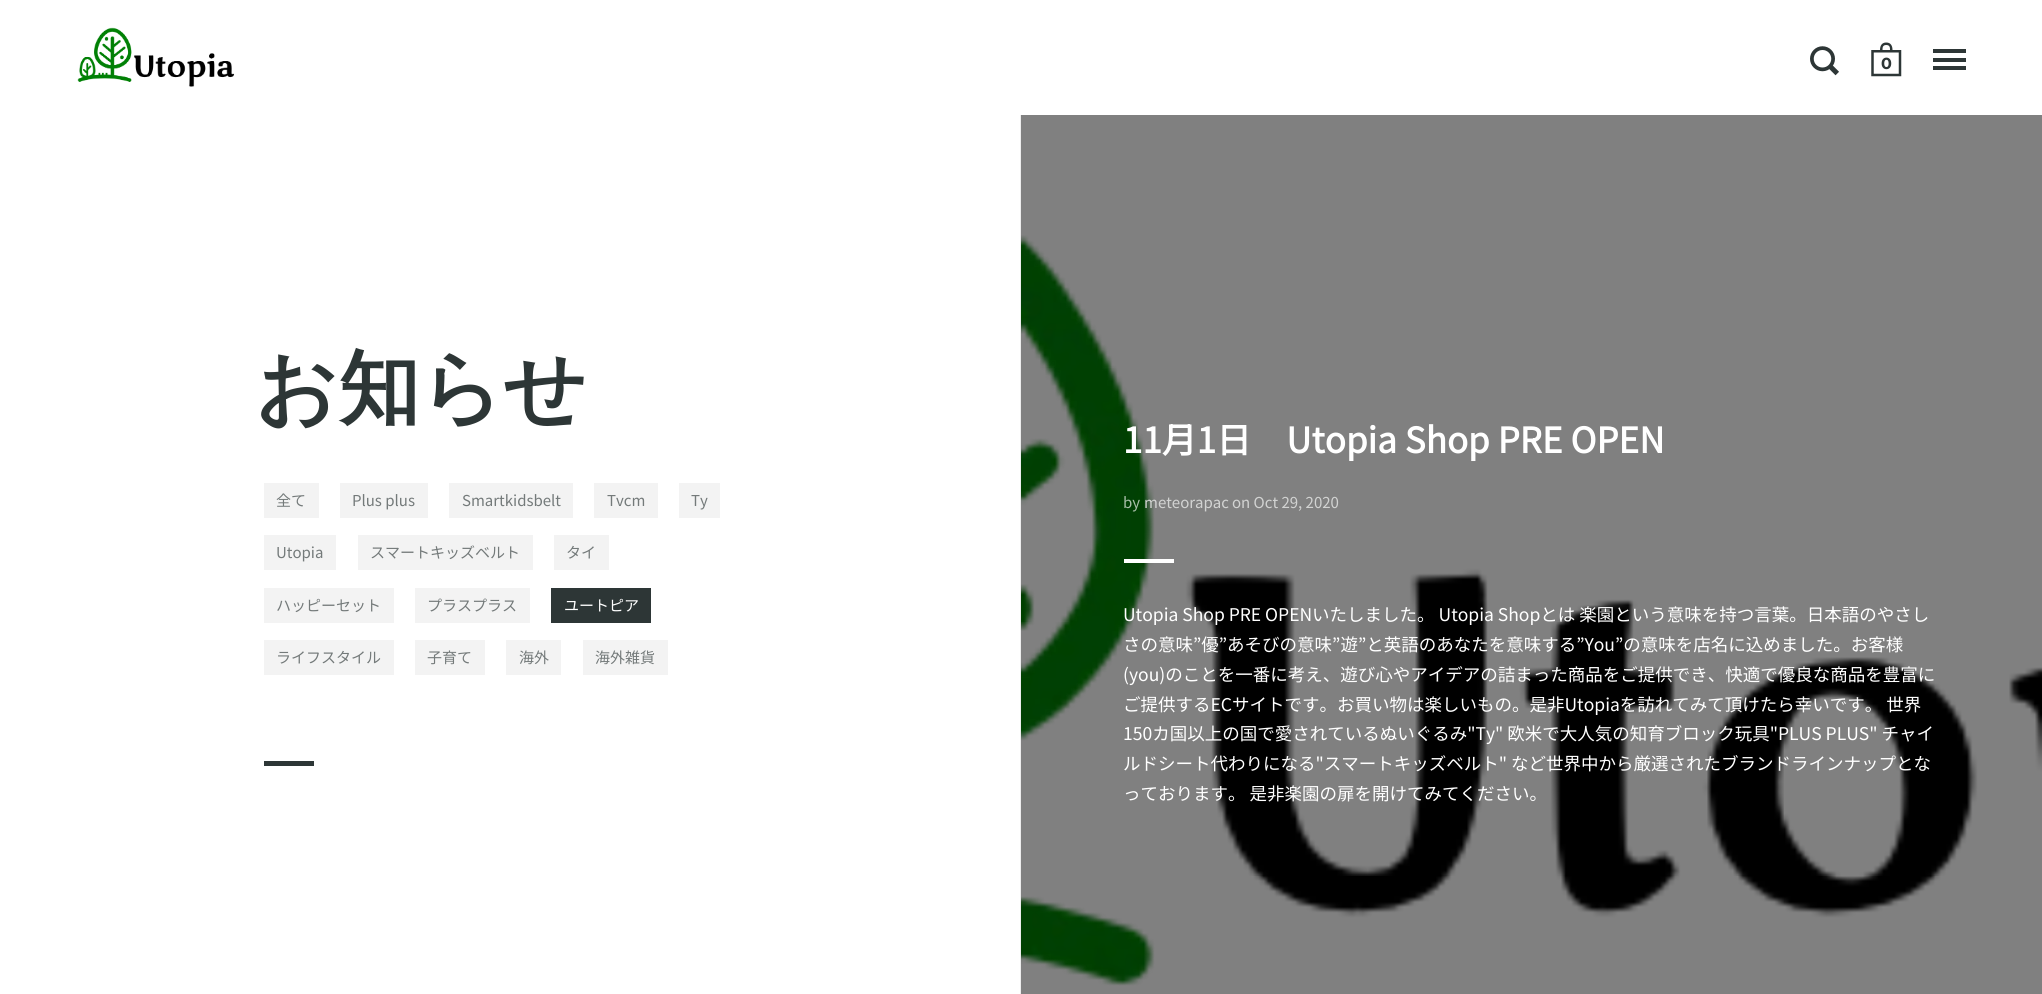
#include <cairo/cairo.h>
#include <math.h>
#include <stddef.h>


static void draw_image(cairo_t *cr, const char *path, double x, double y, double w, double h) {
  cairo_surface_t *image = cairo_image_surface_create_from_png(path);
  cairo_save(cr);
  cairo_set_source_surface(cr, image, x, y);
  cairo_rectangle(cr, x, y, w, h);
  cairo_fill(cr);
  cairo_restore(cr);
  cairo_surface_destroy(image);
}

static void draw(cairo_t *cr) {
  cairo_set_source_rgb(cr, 1, 1, 1);
  cairo_paint(cr);
  cairo_set_source_rgb(cr, 128 / 255.0, 128 / 255.0, 128 / 255.0);
  cairo_rectangle(cr, 1021, 115, 1021, 879);
  cairo_fill(cr);
  draw_image(cr, "images/1.png", 77, 27, 158, 60);
  draw_image(cr, "images/2.png", 1810, 46, 29, 30);
  draw_image(cr, "images/3.png", 1871, 42, 31, 35);
  cairo_set_source_rgb(cr, 45 / 255.0, 54 / 255.0, 54 / 255.0);
  cairo_rectangle(cr, 1933, 58, 33, 4);
  cairo_fill(cr);
  cairo_rectangle(cr, 1933, 49, 33, 4);
  cairo_fill(cr);
  cairo_rectangle(cr, 1933, 66, 33, 4);
  cairo_fill(cr);
  cairo_set_source_rgb(cr, 237 / 255.0, 237 / 255.0, 237 / 255.0);
  cairo_rectangle(cr, 1020, 115, 1, 879);
  cairo_fill(cr);
  cairo_set_source_rgb(cr, 243 / 255.0, 243 / 255.0, 243 / 255.0);
  cairo_rectangle(cr, 264, 483, 55, 35);
  cairo_fill(cr);
  cairo_rectangle(cr, 340, 483, 88, 35);
  cairo_fill(cr);
  cairo_rectangle(cr, 449, 483, 124, 35);
  cairo_fill(cr);
  cairo_rectangle(cr, 594, 483, 64, 35);
  cairo_fill(cr);
  cairo_rectangle(cr, 679, 483, 41, 35);
  cairo_fill(cr);
  cairo_rectangle(cr, 264, 535, 72, 35);
  cairo_fill(cr);
  cairo_rectangle(cr, 358, 535, 175, 35);
  cairo_fill(cr);
  cairo_rectangle(cr, 554, 535, 55, 35);
  cairo_fill(cr);
  cairo_rectangle(cr, 264, 588, 130, 35);
  cairo_fill(cr);
  cairo_rectangle(cr, 415, 588, 115, 35);
  cairo_fill(cr);
  cairo_set_source_rgb(cr, 45 / 255.0, 54 / 255.0, 54 / 255.0);
  cairo_rectangle(cr, 551, 588, 100, 35);
  cairo_fill(cr);
  cairo_set_source_rgb(cr, 243 / 255.0, 243 / 255.0, 243 / 255.0);
  cairo_rectangle(cr, 264, 640, 130, 35);
  cairo_fill(cr);
  cairo_rectangle(cr, 415, 640, 70, 35);
  cairo_fill(cr);
  cairo_rectangle(cr, 506, 640, 55, 35);
  cairo_fill(cr);
  cairo_rectangle(cr, 583, 640, 85, 35);
  cairo_fill(cr);
  cairo_set_source_rgb(cr, 45 / 255.0, 54 / 255.0, 54 / 255.0);
  cairo_rectangle(cr, 264, 761, 50, 5);
  cairo_fill(cr);
  draw_image(cr, "images/4.png", 1021, 235, 1021, 751);
  cairo_set_source_rgb(cr, 1, 1, 1);
  cairo_rectangle(cr, 1124, 559, 50, 4);
  cairo_fill(cr);
  cairo_select_font_face(cr, "Montserrat", CAIRO_FONT_SLANT_NORMAL, CAIRO_FONT_WEIGHT_BOLD);
  cairo_set_font_size(cr, 16);
  cairo_set_source_rgb(cr, 45 / 255.0, 54 / 255.0, 54 / 255.0);
  cairo_move_to(cr, 1881, 69);
  cairo_show_text(cr, "0");
  cairo_select_font_face(cr, "WenQuanYi Zen Hei", CAIRO_FONT_SLANT_NORMAL, CAIRO_FONT_WEIGHT_BOLD);
  cairo_set_font_size(cr, 81.5);
  cairo_move_to(cr, 255, 416);
  cairo_show_text(cr, "お知らせ");
  cairo_select_font_face(cr, "Noto Sans JP Thin", CAIRO_FONT_SLANT_NORMAL, CAIRO_FONT_WEIGHT_NORMAL);
  cairo_set_font_size(cr, 15);
  cairo_set_source_rgb(cr, 116 / 255.0, 122 / 255.0, 122 / 255.0);
  cairo_move_to(cr, 276, 506);
  cairo_show_text(cr, "全て");
  cairo_move_to(cr, 352, 506);
  cairo_show_text(cr, "Plus plus");
  cairo_move_to(cr, 462, 506);
  cairo_show_text(cr, "Smartkidsbelt");
  cairo_move_to(cr, 607, 506);
  cairo_show_text(cr, "Tvcm");
  cairo_move_to(cr, 691, 506);
  cairo_show_text(cr, "Ty");
  cairo_move_to(cr, 276, 558);
  cairo_show_text(cr, "Utopia");
  cairo_move_to(cr, 370, 558);
  cairo_show_text(cr, "スマートキッズベルト");
  cairo_move_to(cr, 566, 558);
  cairo_show_text(cr, "タイ");
  cairo_move_to(cr, 276, 611);
  cairo_show_text(cr, "ハッピーセット");
  cairo_move_to(cr, 427, 611);
  cairo_show_text(cr, "プラスプラス");
  cairo_set_source_rgb(cr, 1, 1, 1);
  cairo_move_to(cr, 564, 611);
  cairo_show_text(cr, "ユートピア");
  cairo_set_source_rgb(cr, 116 / 255.0, 122 / 255.0, 122 / 255.0);
  cairo_move_to(cr, 276, 663);
  cairo_show_text(cr, "ライフスタイル");
  cairo_move_to(cr, 427, 663);
  cairo_show_text(cr, "子育て");
  cairo_move_to(cr, 519, 663);
  cairo_show_text(cr, "海外");
  cairo_move_to(cr, 595, 663);
  cairo_show_text(cr, "海外雑貨");
  cairo_select_font_face(cr, "Noto Sans JP", CAIRO_FONT_SLANT_NORMAL, CAIRO_FONT_WEIGHT_BOLD);
  cairo_set_font_size(cr, 35);
  cairo_set_source_rgb(cr, 1, 1, 1);
  cairo_move_to(cr, 1123, 453);
  cairo_show_text(cr, "11月1日　Utopia Shop PRE OPEN");
  cairo_select_font_face(cr, "Noto Sans JP Thin", CAIRO_FONT_SLANT_NORMAL, CAIRO_FONT_WEIGHT_NORMAL);
  cairo_set_font_size(cr, 15);
  cairo_set_source_rgb(cr, 168 / 255.0, 190 / 255.0, 169 / 255.0);
  cairo_move_to(cr, 1123, 508);
  cairo_show_text(cr, "by");
  cairo_set_source_rgb(cr, 210 / 255.0, 211 / 255.0, 210 / 255.0);
  cairo_move_to(cr, 1144, 508);
  cairo_show_text(cr, "meteorapac");
  cairo_move_to(cr, 1232, 508);
  cairo_show_text(cr, "on Oct 29, 2020");
  cairo_set_font_size(cr, 17.5);
  cairo_set_source_rgb(cr, 1, 1, 1);
  cairo_move_to(cr, 1123, 621);
  cairo_show_text(cr, "Utopia Shop PRE OPENいたしました。 Utopia Shopとは 楽園という意味を持つ言葉。日本語のやさし");
  cairo_move_to(cr, 1123, 651);
  cairo_show_text(cr, "さの意味”優”あそびの意味”遊”と英語のあなたを意味する”You”の意味を店名に込めました。お客様");
  cairo_move_to(cr, 1123, 681);
  cairo_show_text(cr, "(you)のことを一番に考え、遊び心やアイデアの詰まった商品をご提供でき、快適で優良な商品を豊富に");
  cairo_move_to(cr, 1123, 711);
  cairo_show_text(cr, "ご提供するECサイトです。お買い物は楽しいもの。是非Utopiaを訪れてみて頂けたら幸いです。 世界");
  cairo_move_to(cr, 1123, 740);
  cairo_show_text(cr, "150カ国以上の国で愛されているぬいぐるみ\"Ty\" 欧米で大人気の知育ブロック玩具\"PLUS PLUS\" チャイ");
  cairo_move_to(cr, 1123, 770);
  cairo_show_text(cr, "ルドシート代わりになる\"スマートキッズベルト\" など世界中から厳選されたブランドラインナップとな");
  cairo_move_to(cr, 1123, 800);
  cairo_show_text(cr, "っております。 是非楽園の扉を開けてみてください。");
}

int main(void) {
  cairo_surface_t *surface = cairo_image_surface_create(CAIRO_FORMAT_RGB24, 2042, 994);
  cairo_t *cr = cairo_create(surface);
  cairo_font_options_t *options = cairo_font_options_create();
  cairo_font_options_set_hint_metrics(options, CAIRO_HINT_METRICS_OFF);
  cairo_font_options_set_hint_style(options, CAIRO_HINT_STYLE_NONE);
  cairo_set_font_options(cr, options);
  cairo_set_miter_limit(cr, 4);
  draw(cr);
  cairo_surface_write_to_png(surface, "out.png");
  cairo_font_options_destroy(options);
  cairo_destroy(cr);
  cairo_surface_destroy(surface);
  return 0;
}
